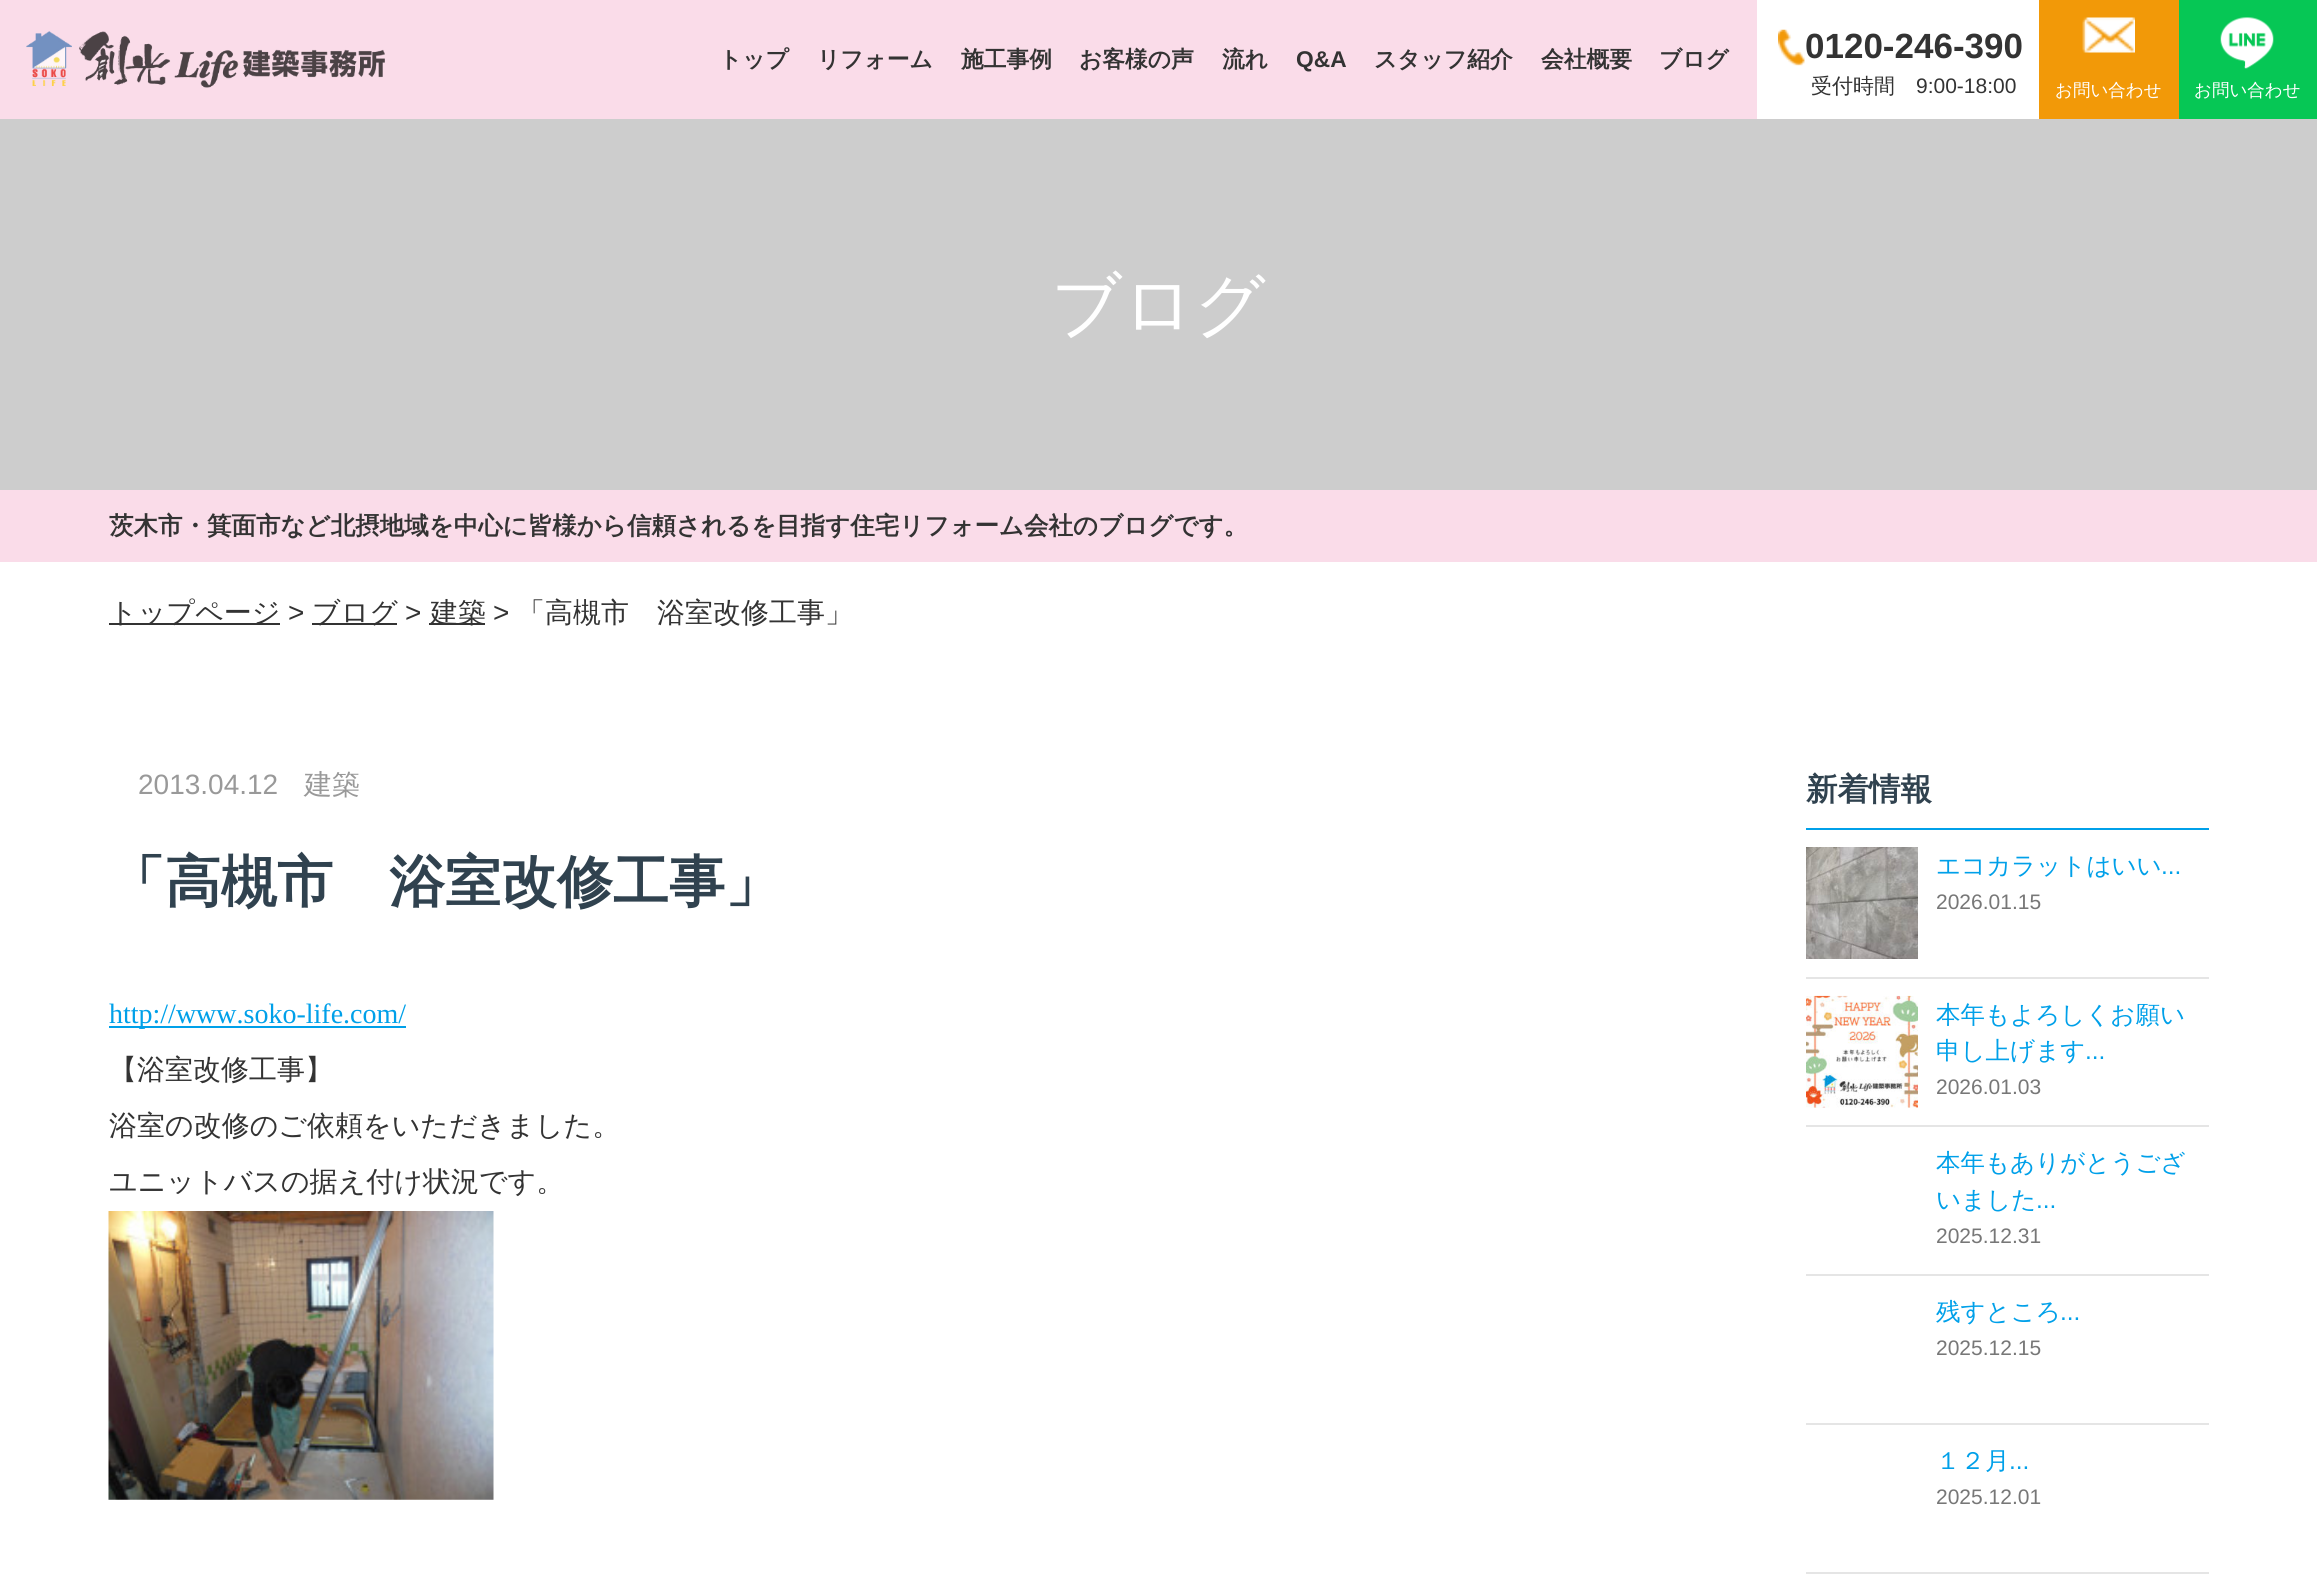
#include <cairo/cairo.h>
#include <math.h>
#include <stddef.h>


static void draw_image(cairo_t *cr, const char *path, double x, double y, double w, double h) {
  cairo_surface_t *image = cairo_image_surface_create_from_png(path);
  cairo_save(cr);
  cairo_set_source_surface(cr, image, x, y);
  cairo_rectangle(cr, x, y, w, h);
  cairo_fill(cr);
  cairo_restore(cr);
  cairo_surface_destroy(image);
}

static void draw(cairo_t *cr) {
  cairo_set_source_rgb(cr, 1, 1, 1);
  cairo_paint(cr);
  cairo_set_source_rgb(cr, 250 / 255.0, 220 / 255.0, 233 / 255.0);
  cairo_rectangle(cr, 0, 0, 1757, 119);
  cairo_fill(cr);
  draw_image(cr, "images/1.png", 26, 31, 359, 57);
  draw_image(cr, "images/2.png", 1778, 29, 27, 37);
  cairo_set_source_rgb(cr, 242 / 255.0, 153 / 255.0, 8 / 255.0);
  cairo_rectangle(cr, 2039, 0, 140, 119);
  cairo_fill(cr);
  draw_image(cr, "images/3.png", 2082, 17, 53, 36);
  cairo_set_source_rgb(cr, 6 / 255.0, 199 / 255.0, 85 / 255.0);
  cairo_rectangle(cr, 2179, 0, 138, 119);
  cairo_fill(cr);
  draw_image(cr, "images/4.png", 2220, 17, 54, 52);
  cairo_set_source_rgb(cr, 205 / 255.0, 205 / 255.0, 205 / 255.0);
  cairo_rectangle(cr, 0, 119, 2317, 371);
  cairo_fill(cr);
  cairo_set_source_rgb(cr, 250 / 255.0, 220 / 255.0, 233 / 255.0);
  cairo_rectangle(cr, 0, 490, 2317, 72);
  cairo_fill(cr);
  cairo_set_source_rgb(cr, 51 / 255.0, 51 / 255.0, 51 / 255.0);
  cairo_rectangle(cr, 109, 623, 171, 2);
  cairo_fill(cr);
  cairo_rectangle(cr, 312, 623, 85, 2);
  cairo_fill(cr);
  cairo_rectangle(cr, 429, 623, 56, 2);
  cairo_fill(cr);
  cairo_set_source_rgb(cr, 0, 160 / 255.0, 233 / 255.0);
  cairo_rectangle(cr, 109, 1026, 297, 2);
  cairo_fill(cr);
  draw_image(cr, "images/5.png", 108, 1211, 386, 289);
  cairo_rectangle(cr, 1806, 828, 403, 2);
  cairo_fill(cr);
  cairo_set_source_rgb(cr, 229 / 255.0, 229 / 255.0, 229 / 255.0);
  cairo_rectangle(cr, 1806, 977, 403, 2);
  cairo_fill(cr);
  draw_image(cr, "images/6.png", 1806, 847, 112, 112);
  cairo_rectangle(cr, 1806, 1125, 403, 2);
  cairo_fill(cr);
  draw_image(cr, "images/7.png", 1806, 995, 112, 113);
  cairo_rectangle(cr, 1806, 1274, 403, 2);
  cairo_fill(cr);
  cairo_rectangle(cr, 1806, 1423, 403, 2);
  cairo_fill(cr);
  cairo_rectangle(cr, 1806, 1572, 403, 2);
  cairo_fill(cr);
  cairo_select_font_face(cr, "WenQuanYi Zen Hei", CAIRO_FONT_SLANT_NORMAL, CAIRO_FONT_WEIGHT_BOLD);
  cairo_set_font_size(cr, 22.75);
  cairo_set_source_rgb(cr, 51 / 255.0, 51 / 255.0, 51 / 255.0);
  cairo_move_to(cr, 719, 67);
  cairo_show_text(cr, "トップ");
  cairo_move_to(cr, 817, 67);
  cairo_show_text(cr, "リフォーム");
  cairo_move_to(cr, 961, 67);
  cairo_show_text(cr, "施工事例");
  cairo_move_to(cr, 1079, 67);
  cairo_show_text(cr, "お客様の声");
  cairo_move_to(cr, 1222, 67);
  cairo_show_text(cr, "流れ");
  cairo_select_font_face(cr, "Liberation Sans", CAIRO_FONT_SLANT_NORMAL, CAIRO_FONT_WEIGHT_BOLD);
  cairo_move_to(cr, 1296, 67);
  cairo_show_text(cr, "Q&A");
  cairo_select_font_face(cr, "WenQuanYi Zen Hei", CAIRO_FONT_SLANT_NORMAL, CAIRO_FONT_WEIGHT_BOLD);
  cairo_move_to(cr, 1374, 67);
  cairo_show_text(cr, "スタッフ紹介");
  cairo_move_to(cr, 1541, 67);
  cairo_show_text(cr, "会社概要");
  cairo_move_to(cr, 1659, 67);
  cairo_show_text(cr, "ブログ");
  cairo_select_font_face(cr, "Liberation Sans", CAIRO_FONT_SLANT_NORMAL, CAIRO_FONT_WEIGHT_BOLD);
  cairo_set_font_size(cr, 35);
  cairo_move_to(cr, 1805, 58);
  cairo_show_text(cr, "0120-246-390");
  cairo_select_font_face(cr, "WenQuanYi Zen Hei Medium", CAIRO_FONT_SLANT_NORMAL, CAIRO_FONT_WEIGHT_NORMAL);
  cairo_set_font_size(cr, 21);
  cairo_move_to(cr, 1811, 93);
  cairo_show_text(cr, "受付時間");
  cairo_select_font_face(cr, "Liberation Sans", CAIRO_FONT_SLANT_NORMAL, CAIRO_FONT_WEIGHT_NORMAL);
  cairo_move_to(cr, 1916, 93);
  cairo_show_text(cr, "9:00-18:00");
  cairo_select_font_face(cr, "WenQuanYi Zen Hei Medium", CAIRO_FONT_SLANT_NORMAL, CAIRO_FONT_WEIGHT_NORMAL);
  cairo_set_font_size(cr, 17.5);
  cairo_set_source_rgb(cr, 1, 1, 1);
  cairo_move_to(cr, 2055, 96);
  cairo_show_text(cr, "お問い合わせ");
  cairo_move_to(cr, 2194, 96);
  cairo_show_text(cr, "お問い合わせ");
  cairo_set_font_size(cr, 70);
  cairo_move_to(cr, 1051, 329);
  cairo_show_text(cr, "ブログ");
  cairo_select_font_face(cr, "WenQuanYi Zen Hei", CAIRO_FONT_SLANT_NORMAL, CAIRO_FONT_WEIGHT_BOLD);
  cairo_set_font_size(cr, 24.5);
  cairo_set_source_rgb(cr, 51 / 255.0, 51 / 255.0, 51 / 255.0);
  cairo_move_to(cr, 109, 534);
  cairo_show_text(cr, "茨木市・箕面市など北摂地域を中心に皆様から信頼されるを目指す住宅リフォーム会社のブログです。");
  cairo_select_font_face(cr, "WenQuanYi Zen Hei Medium", CAIRO_FONT_SLANT_NORMAL, CAIRO_FONT_WEIGHT_NORMAL);
  cairo_set_font_size(cr, 28);
  cairo_move_to(cr, 109, 622);
  cairo_show_text(cr, "トップページ");
  cairo_select_font_face(cr, "Liberation Sans", CAIRO_FONT_SLANT_NORMAL, CAIRO_FONT_WEIGHT_NORMAL);
  cairo_move_to(cr, 288, 622);
  cairo_show_text(cr, ">");
  cairo_select_font_face(cr, "WenQuanYi Zen Hei Medium", CAIRO_FONT_SLANT_NORMAL, CAIRO_FONT_WEIGHT_NORMAL);
  cairo_move_to(cr, 312, 622);
  cairo_show_text(cr, "ブログ");
  cairo_select_font_face(cr, "Liberation Sans", CAIRO_FONT_SLANT_NORMAL, CAIRO_FONT_WEIGHT_NORMAL);
  cairo_move_to(cr, 405, 622);
  cairo_show_text(cr, ">");
  cairo_select_font_face(cr, "WenQuanYi Zen Hei Medium", CAIRO_FONT_SLANT_NORMAL, CAIRO_FONT_WEIGHT_NORMAL);
  cairo_move_to(cr, 430, 622);
  cairo_show_text(cr, "建築");
  cairo_select_font_face(cr, "Liberation Sans", CAIRO_FONT_SLANT_NORMAL, CAIRO_FONT_WEIGHT_NORMAL);
  cairo_move_to(cr, 493, 622);
  cairo_show_text(cr, ">");
  cairo_select_font_face(cr, "WenQuanYi Zen Hei Medium", CAIRO_FONT_SLANT_NORMAL, CAIRO_FONT_WEIGHT_NORMAL);
  cairo_move_to(cr, 517, 622);
  cairo_show_text(cr, "「高槻市　浴室改修工事」");
  cairo_select_font_face(cr, "Liberation Sans", CAIRO_FONT_SLANT_NORMAL, CAIRO_FONT_WEIGHT_NORMAL);
  cairo_set_source_rgb(cr, 153 / 255.0, 153 / 255.0, 153 / 255.0);
  cairo_move_to(cr, 138, 794);
  cairo_show_text(cr, "2013.04.12");
  cairo_select_font_face(cr, "WenQuanYi Zen Hei Medium", CAIRO_FONT_SLANT_NORMAL, CAIRO_FONT_WEIGHT_NORMAL);
  cairo_move_to(cr, 304, 794);
  cairo_show_text(cr, "建築");
  cairo_select_font_face(cr, "WenQuanYi Zen Hei", CAIRO_FONT_SLANT_NORMAL, CAIRO_FONT_WEIGHT_BOLD);
  cairo_set_font_size(cr, 56);
  cairo_set_source_rgb(cr, 48 / 255.0, 66 / 255.0, 79 / 255.0);
  cairo_move_to(cr, 109, 901);
  cairo_show_text(cr, "「高槻市　浴室改修工事」");
  cairo_select_font_face(cr, "Liberation Serif", CAIRO_FONT_SLANT_NORMAL, CAIRO_FONT_WEIGHT_NORMAL);
  cairo_set_font_size(cr, 28);
  cairo_set_source_rgb(cr, 0, 160 / 255.0, 233 / 255.0);
  cairo_move_to(cr, 109, 1023);
  cairo_show_text(cr, "http://www.soko-life.com/");
  cairo_select_font_face(cr, "WenQuanYi Zen Hei Medium", CAIRO_FONT_SLANT_NORMAL, CAIRO_FONT_WEIGHT_NORMAL);
  cairo_set_source_rgb(cr, 51 / 255.0, 51 / 255.0, 51 / 255.0);
  cairo_move_to(cr, 109, 1079);
  cairo_show_text(cr, "【浴室改修工事】");
  cairo_move_to(cr, 109, 1135);
  cairo_show_text(cr, "浴室の改修のご依頼をいただきました。");
  cairo_move_to(cr, 109, 1191);
  cairo_show_text(cr, "ユニットバスの据え付け状況です。");
  cairo_select_font_face(cr, "WenQuanYi Zen Hei", CAIRO_FONT_SLANT_NORMAL, CAIRO_FONT_WEIGHT_BOLD);
  cairo_set_font_size(cr, 31.5);
  cairo_set_source_rgb(cr, 48 / 255.0, 66 / 255.0, 79 / 255.0);
  cairo_move_to(cr, 1806, 800);
  cairo_show_text(cr, "新着情報");
  cairo_select_font_face(cr, "WenQuanYi Zen Hei Medium", CAIRO_FONT_SLANT_NORMAL, CAIRO_FONT_WEIGHT_NORMAL);
  cairo_set_font_size(cr, 24.5);
  cairo_set_source_rgb(cr, 0, 160 / 255.0, 233 / 255.0);
  cairo_move_to(cr, 1936, 874);
  cairo_show_text(cr, "エコカラットはいい");
  cairo_select_font_face(cr, "Liberation Sans", CAIRO_FONT_SLANT_NORMAL, CAIRO_FONT_WEIGHT_NORMAL);
  cairo_move_to(cr, 2161, 874);
  cairo_show_text(cr, "...");
  cairo_set_font_size(cr, 21);
  cairo_set_source_rgb(cr, 119 / 255.0, 119 / 255.0, 119 / 255.0);
  cairo_move_to(cr, 1936, 909);
  cairo_show_text(cr, "2026.01.15");
  cairo_select_font_face(cr, "WenQuanYi Zen Hei Medium", CAIRO_FONT_SLANT_NORMAL, CAIRO_FONT_WEIGHT_NORMAL);
  cairo_set_font_size(cr, 24.5);
  cairo_set_source_rgb(cr, 0, 160 / 255.0, 233 / 255.0);
  cairo_move_to(cr, 1936, 1023);
  cairo_show_text(cr, "本年もよろしくお願い");
  cairo_move_to(cr, 1936, 1059);
  cairo_show_text(cr, "申し上げます");
  cairo_select_font_face(cr, "Liberation Sans", CAIRO_FONT_SLANT_NORMAL, CAIRO_FONT_WEIGHT_NORMAL);
  cairo_move_to(cr, 2085, 1059);
  cairo_show_text(cr, "...");
  cairo_set_font_size(cr, 21);
  cairo_set_source_rgb(cr, 119 / 255.0, 119 / 255.0, 119 / 255.0);
  cairo_move_to(cr, 1936, 1094);
  cairo_show_text(cr, "2026.01.03");
  cairo_select_font_face(cr, "WenQuanYi Zen Hei Medium", CAIRO_FONT_SLANT_NORMAL, CAIRO_FONT_WEIGHT_NORMAL);
  cairo_set_font_size(cr, 24.5);
  cairo_set_source_rgb(cr, 0, 160 / 255.0, 233 / 255.0);
  cairo_move_to(cr, 1936, 1171);
  cairo_show_text(cr, "本年もありがとうござ");
  cairo_move_to(cr, 1936, 1208);
  cairo_show_text(cr, "いました");
  cairo_select_font_face(cr, "Liberation Sans", CAIRO_FONT_SLANT_NORMAL, CAIRO_FONT_WEIGHT_NORMAL);
  cairo_move_to(cr, 2036, 1208);
  cairo_show_text(cr, "...");
  cairo_set_font_size(cr, 21);
  cairo_set_source_rgb(cr, 119 / 255.0, 119 / 255.0, 119 / 255.0);
  cairo_move_to(cr, 1936, 1243);
  cairo_show_text(cr, "2025.12.31");
  cairo_select_font_face(cr, "WenQuanYi Zen Hei Medium", CAIRO_FONT_SLANT_NORMAL, CAIRO_FONT_WEIGHT_NORMAL);
  cairo_set_font_size(cr, 24.5);
  cairo_set_source_rgb(cr, 0, 160 / 255.0, 233 / 255.0);
  cairo_move_to(cr, 1936, 1320);
  cairo_show_text(cr, "残すところ");
  cairo_select_font_face(cr, "Liberation Sans", CAIRO_FONT_SLANT_NORMAL, CAIRO_FONT_WEIGHT_NORMAL);
  cairo_move_to(cr, 2060, 1320);
  cairo_show_text(cr, "...");
  cairo_set_font_size(cr, 21);
  cairo_set_source_rgb(cr, 119 / 255.0, 119 / 255.0, 119 / 255.0);
  cairo_move_to(cr, 1936, 1355);
  cairo_show_text(cr, "2025.12.15");
  cairo_select_font_face(cr, "WenQuanYi Zen Hei Medium", CAIRO_FONT_SLANT_NORMAL, CAIRO_FONT_WEIGHT_NORMAL);
  cairo_set_font_size(cr, 24.5);
  cairo_set_source_rgb(cr, 0, 160 / 255.0, 233 / 255.0);
  cairo_move_to(cr, 1936, 1469);
  cairo_show_text(cr, "１２月");
  cairo_select_font_face(cr, "Liberation Sans", CAIRO_FONT_SLANT_NORMAL, CAIRO_FONT_WEIGHT_NORMAL);
  cairo_move_to(cr, 2009, 1469);
  cairo_show_text(cr, "...");
  cairo_set_font_size(cr, 21);
  cairo_set_source_rgb(cr, 119 / 255.0, 119 / 255.0, 119 / 255.0);
  cairo_move_to(cr, 1936, 1504);
  cairo_show_text(cr, "2025.12.01");
}

int main(void) {
  cairo_surface_t *surface = cairo_image_surface_create(CAIRO_FORMAT_RGB24, 2317, 1577);
  cairo_t *cr = cairo_create(surface);
  cairo_font_options_t *options = cairo_font_options_create();
  cairo_font_options_set_hint_metrics(options, CAIRO_HINT_METRICS_OFF);
  cairo_font_options_set_hint_style(options, CAIRO_HINT_STYLE_NONE);
  cairo_set_font_options(cr, options);
  cairo_set_miter_limit(cr, 4);
  draw(cr);
  cairo_surface_write_to_png(surface, "out.png");
  cairo_font_options_destroy(options);
  cairo_destroy(cr);
  cairo_surface_destroy(surface);
  return 0;
}
